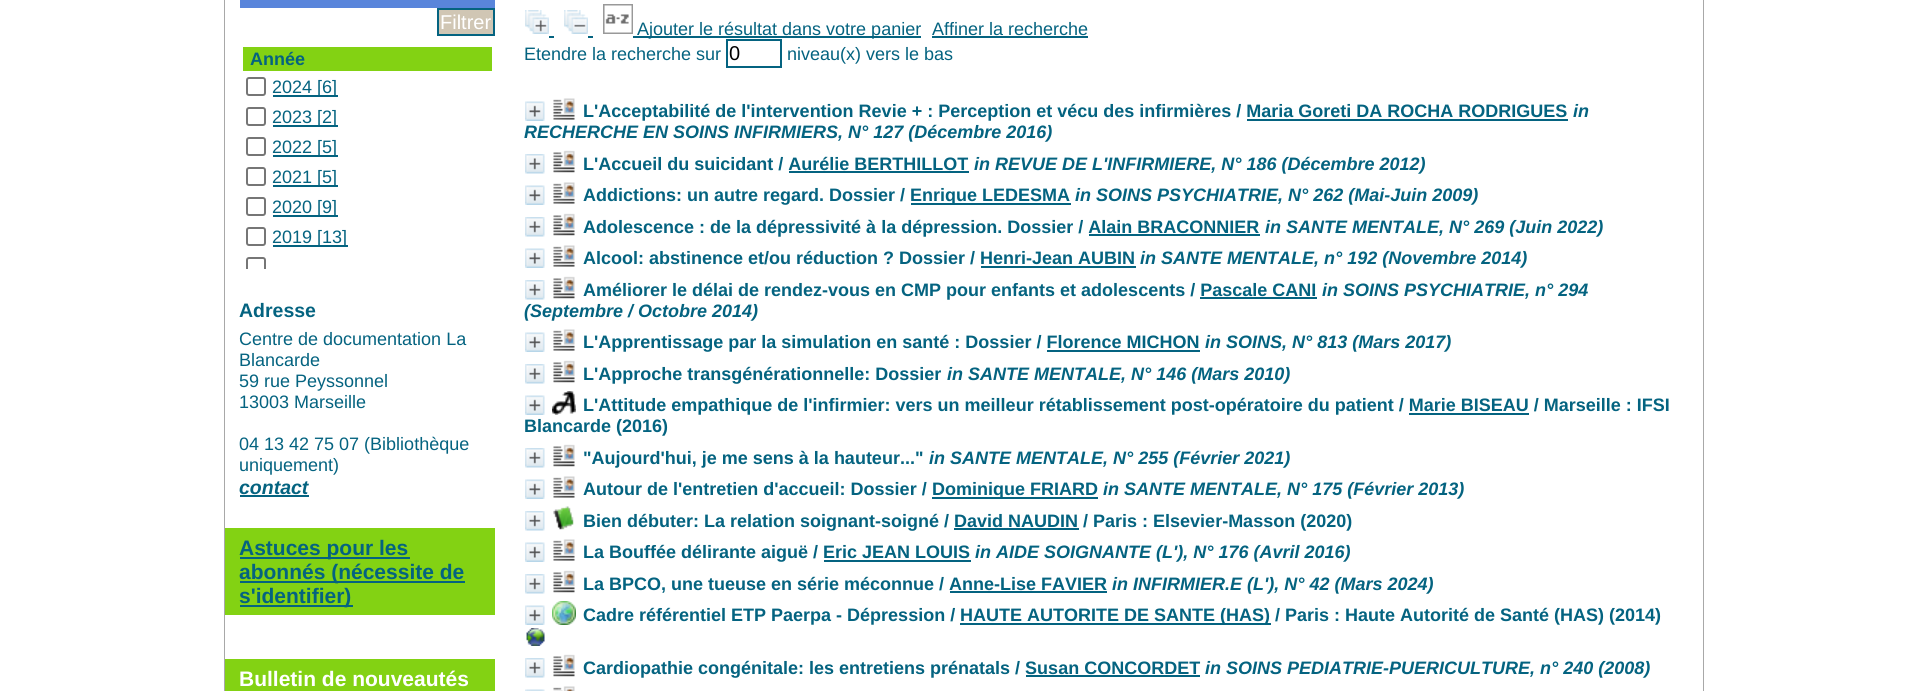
#include <cairo/cairo.h>
#include <math.h>
#include <stddef.h>


static void rounded_rect(cairo_t *cr, double x, double y, double w, double h, double r) {
  cairo_new_sub_path(cr);
  cairo_arc(cr, x + w - r, y + h - r, r, 0, M_PI / 2);
  cairo_arc(cr, x + r, y + h - r, r, M_PI / 2, M_PI);
  cairo_arc(cr, x + r, y + r, r, M_PI, 1.5 * M_PI);
  cairo_arc(cr, x + w - r, y + r, r, 1.5 * M_PI, 2 * M_PI);
  cairo_close_path(cr);
}

static void draw_image(cairo_t *cr, const char *path, double x, double y, double w, double h) {
  cairo_surface_t *image = cairo_image_surface_create_from_png(path);
  cairo_save(cr);
  cairo_set_source_surface(cr, image, x, y);
  cairo_rectangle(cr, x, y, w, h);
  cairo_fill(cr);
  cairo_restore(cr);
  cairo_surface_destroy(image);
}

static void draw(cairo_t *cr) {
  cairo_set_source_rgb(cr, 1, 1, 1);
  cairo_paint(cr);
  cairo_rectangle(cr, 225, -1, 1478, 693);
  cairo_set_source_rgb(cr, 168 / 255.0, 168 / 255.0, 168 / 255.0);
  cairo_stroke(cr);
  cairo_set_source_rgb(cr, 1, 1, 1);
  cairo_rectangle(cr, 225, 0, 1478, 691);
  cairo_fill(cr);
  cairo_set_source_rgb(cr, 89 / 255.0, 133 / 255.0, 219 / 255.0);
  cairo_rectangle(cr, 240, 0, 255, 8);
  cairo_fill(cr);
  cairo_set_source_rgb(cr, 208 / 255.0, 198 / 255.0, 180 / 255.0);
  cairo_rectangle(cr, 438, 9, 56, 26);
  cairo_fill_preserve(cr);
  cairo_set_source_rgb(cr, 4 / 255.0, 99 / 255.0, 128 / 255.0);
  cairo_stroke(cr);
  cairo_set_source_rgb(cr, 131 / 255.0, 210 / 255.0, 19 / 255.0);
  cairo_rectangle(cr, 243, 47, 249, 24);
  cairo_fill(cr);
  rounded_rect(cr, 247, 78, 18, 17, 2);
  cairo_set_source_rgb(cr, 118 / 255.0, 118 / 255.0, 118 / 255.0);
  cairo_stroke(cr);
  cairo_set_source_rgb(cr, 4 / 255.0, 99 / 255.0, 128 / 255.0);
  cairo_rectangle(cr, 273, 95, 65, 2);
  cairo_fill(cr);
  rounded_rect(cr, 247, 108, 18, 17, 2);
  cairo_set_source_rgb(cr, 118 / 255.0, 118 / 255.0, 118 / 255.0);
  cairo_stroke(cr);
  cairo_set_source_rgb(cr, 4 / 255.0, 99 / 255.0, 128 / 255.0);
  cairo_rectangle(cr, 273, 125, 65, 2);
  cairo_fill(cr);
  rounded_rect(cr, 247, 138, 18, 17, 2);
  cairo_set_source_rgb(cr, 118 / 255.0, 118 / 255.0, 118 / 255.0);
  cairo_stroke(cr);
  cairo_set_source_rgb(cr, 4 / 255.0, 99 / 255.0, 128 / 255.0);
  cairo_rectangle(cr, 273, 155, 65, 2);
  cairo_fill(cr);
  rounded_rect(cr, 247, 168, 18, 17, 2);
  cairo_set_source_rgb(cr, 118 / 255.0, 118 / 255.0, 118 / 255.0);
  cairo_stroke(cr);
  cairo_set_source_rgb(cr, 4 / 255.0, 99 / 255.0, 128 / 255.0);
  cairo_rectangle(cr, 273, 185, 65, 2);
  cairo_fill(cr);
  rounded_rect(cr, 247, 198, 18, 17, 2);
  cairo_set_source_rgb(cr, 118 / 255.0, 118 / 255.0, 118 / 255.0);
  cairo_stroke(cr);
  cairo_set_source_rgb(cr, 4 / 255.0, 99 / 255.0, 128 / 255.0);
  cairo_rectangle(cr, 273, 215, 65, 2);
  cairo_fill(cr);
  rounded_rect(cr, 247, 228, 18, 17, 2);
  cairo_set_source_rgb(cr, 118 / 255.0, 118 / 255.0, 118 / 255.0);
  cairo_stroke(cr);
  cairo_set_source_rgb(cr, 4 / 255.0, 99 / 255.0, 128 / 255.0);
  cairo_rectangle(cr, 273, 245, 75, 2);
  cairo_fill(cr);
  cairo_save(cr);
  cairo_rectangle(cr, 240, 0, 255, 269);
  cairo_clip(cr);
  rounded_rect(cr, 247, 258, 18, 17, 2);
  cairo_set_source_rgb(cr, 118 / 255.0, 118 / 255.0, 118 / 255.0);
  cairo_stroke(cr);
  cairo_restore(cr);
  cairo_rectangle(cr, 240, 495, 69, 2);
  cairo_fill(cr);
  cairo_set_source_rgb(cr, 131 / 255.0, 210 / 255.0, 19 / 255.0);
  cairo_rectangle(cr, 225, 528, 270, 87);
  cairo_fill(cr);
  cairo_set_source_rgb(cr, 4 / 255.0, 99 / 255.0, 128 / 255.0);
  cairo_rectangle(cr, 240, 557, 170, 2);
  cairo_fill(cr);
  cairo_rectangle(cr, 240, 581, 225, 2);
  cairo_fill(cr);
  cairo_rectangle(cr, 240, 605, 113, 2);
  cairo_fill(cr);
  cairo_set_source_rgb(cr, 131 / 255.0, 210 / 255.0, 19 / 255.0);
  cairo_rectangle(cr, 225, 659, 270, 32);
  cairo_fill(cr);
  draw_image(cr, "images/1.png", 525, 10, 24, 24);
  draw_image(cr, "images/2.png", 564, 10, 24, 24);
  draw_image(cr, "images/3.png", 603, 4, 30, 30);
  cairo_set_source_rgb(cr, 4 / 255.0, 99 / 255.0, 128 / 255.0);
  cairo_rectangle(cr, 932, 36, 156, 2);
  cairo_fill(cr);
  cairo_rectangle(cr, 549, 36, 5, 2);
  cairo_fill(cr);
  cairo_rectangle(cr, 588, 36, 5, 2);
  cairo_fill(cr);
  cairo_rectangle(cr, 633, 36, 288, 2);
  cairo_fill(cr);
  cairo_rectangle(cr, 727, 40, 54, 27);
  cairo_stroke(cr);
  draw_image(cr, "images/4.png", 525, 101, 20, 20);
  draw_image(cr, "images/5.png", 553, 98, 22, 22);
  cairo_rectangle(cr, 1247, 119, 321, 2);
  cairo_fill(cr);
  draw_image(cr, "images/6.png", 525, 154, 20, 20);
  draw_image(cr, "images/7.png", 553, 150, 22, 23);
  cairo_rectangle(cr, 789, 171, 180, 2);
  cairo_fill(cr);
  draw_image(cr, "images/4.png", 525, 185, 20, 20);
  draw_image(cr, "images/5.png", 553, 182, 22, 22);
  cairo_rectangle(cr, 911, 203, 160, 2);
  cairo_fill(cr);
  draw_image(cr, "images/6.png", 525, 217, 20, 20);
  draw_image(cr, "images/7.png", 553, 213, 22, 23);
  cairo_rectangle(cr, 1089, 234, 171, 2);
  cairo_fill(cr);
  draw_image(cr, "images/4.png", 525, 248, 20, 20);
  draw_image(cr, "images/5.png", 553, 245, 22, 22);
  cairo_rectangle(cr, 981, 266, 155, 2);
  cairo_fill(cr);
  draw_image(cr, "images/6.png", 525, 280, 20, 20);
  draw_image(cr, "images/7.png", 553, 276, 22, 23);
  cairo_rectangle(cr, 1200, 297, 117, 2);
  cairo_fill(cr);
  draw_image(cr, "images/4.png", 525, 332, 20, 20);
  draw_image(cr, "images/5.png", 553, 329, 22, 22);
  cairo_rectangle(cr, 1047, 350, 153, 2);
  cairo_fill(cr);
  draw_image(cr, "images/6.png", 525, 364, 20, 20);
  draw_image(cr, "images/7.png", 553, 360, 22, 23);
  draw_image(cr, "images/4.png", 525, 395, 20, 20);
  draw_image(cr, "images/8.png", 552, 391, 24, 24);
  cairo_rectangle(cr, 1409, 413, 120, 2);
  cairo_fill(cr);
  draw_image(cr, "images/6.png", 525, 448, 20, 20);
  draw_image(cr, "images/7.png", 553, 444, 22, 23);
  draw_image(cr, "images/4.png", 525, 479, 20, 20);
  draw_image(cr, "images/5.png", 553, 476, 22, 22);
  cairo_rectangle(cr, 932, 497, 166, 2);
  cairo_fill(cr);
  draw_image(cr, "images/6.png", 525, 511, 20, 20);
  draw_image(cr, "images/9.png", 553, 506, 21, 24);
  cairo_rectangle(cr, 954, 528, 125, 2);
  cairo_fill(cr);
  draw_image(cr, "images/4.png", 525, 542, 20, 20);
  draw_image(cr, "images/5.png", 553, 539, 22, 22);
  cairo_rectangle(cr, 824, 560, 147, 2);
  cairo_fill(cr);
  draw_image(cr, "images/6.png", 525, 574, 20, 20);
  draw_image(cr, "images/7.png", 553, 570, 22, 23);
  cairo_rectangle(cr, 950, 591, 157, 2);
  cairo_fill(cr);
  draw_image(cr, "images/4.png", 525, 605, 20, 20);
  draw_image(cr, "images/10.png", 552, 601, 24, 24);
  cairo_rectangle(cr, 960, 623, 311, 2);
  cairo_fill(cr);
  draw_image(cr, "images/11.png", 526, 628, 19, 18);
  draw_image(cr, "images/6.png", 525, 658, 20, 20);
  draw_image(cr, "images/7.png", 553, 654, 22, 23);
  cairo_rectangle(cr, 1026, 675, 174, 2);
  cairo_fill(cr);
  draw_image(cr, "images/12.png", 525, 689, 20, 2);
  draw_image(cr, "images/13.png", 553, 686, 22, 5);
  cairo_select_font_face(cr, "Liberation Sans", CAIRO_FONT_SLANT_NORMAL, CAIRO_FONT_WEIGHT_NORMAL);
  cairo_set_font_size(cr, 20);
  cairo_set_source_rgb(cr, 1, 1, 1);
  cairo_move_to(cr, 440, 29);
  cairo_show_text(cr, "Filtrer");
  cairo_select_font_face(cr, "Liberation Sans", CAIRO_FONT_SLANT_NORMAL, CAIRO_FONT_WEIGHT_BOLD);
  cairo_set_font_size(cr, 18);
  cairo_set_source_rgb(cr, 4 / 255.0, 99 / 255.0, 128 / 255.0);
  cairo_move_to(cr, 250, 65);
  cairo_show_text(cr, "Année");
  cairo_select_font_face(cr, "Liberation Sans", CAIRO_FONT_SLANT_NORMAL, CAIRO_FONT_WEIGHT_NORMAL);
  cairo_move_to(cr, 272, 93);
  cairo_show_text(cr, "2024 [6]");
  cairo_move_to(cr, 272, 123);
  cairo_show_text(cr, "2023 [2]");
  cairo_move_to(cr, 272, 153);
  cairo_show_text(cr, "2022 [5]");
  cairo_move_to(cr, 272, 183);
  cairo_show_text(cr, "2021 [5]");
  cairo_move_to(cr, 272, 213);
  cairo_show_text(cr, "2020 [9]");
  cairo_move_to(cr, 272, 243);
  cairo_show_text(cr, "2019 [13]");
  cairo_select_font_face(cr, "Liberation Sans", CAIRO_FONT_SLANT_NORMAL, CAIRO_FONT_WEIGHT_BOLD);
  cairo_set_font_size(cr, 19.5);
  cairo_move_to(cr, 239, 317);
  cairo_show_text(cr, "Adresse");
  cairo_select_font_face(cr, "Liberation Sans", CAIRO_FONT_SLANT_NORMAL, CAIRO_FONT_WEIGHT_NORMAL);
  cairo_set_font_size(cr, 18);
  cairo_move_to(cr, 239, 345);
  cairo_show_text(cr, "Centre de documentation La");
  cairo_move_to(cr, 239, 366);
  cairo_show_text(cr, "Blancarde");
  cairo_move_to(cr, 239, 387);
  cairo_show_text(cr, "59 rue Peyssonnel");
  cairo_move_to(cr, 239, 408);
  cairo_show_text(cr, "13003 Marseille");
  cairo_move_to(cr, 239, 450);
  cairo_show_text(cr, "04 13 42 75 07 (Bibliothèque");
  cairo_move_to(cr, 239, 471);
  cairo_show_text(cr, "uniquement)");
  cairo_select_font_face(cr, "Liberation Sans", CAIRO_FONT_SLANT_ITALIC, CAIRO_FONT_WEIGHT_BOLD);
  cairo_set_font_size(cr, 19.5);
  cairo_move_to(cr, 239, 494);
  cairo_show_text(cr, "contact");
  cairo_select_font_face(cr, "Liberation Sans", CAIRO_FONT_SLANT_NORMAL, CAIRO_FONT_WEIGHT_BOLD);
  cairo_set_font_size(cr, 21);
  cairo_move_to(cr, 239, 555);
  cairo_show_text(cr, "Astuces pour les");
  cairo_move_to(cr, 239, 579);
  cairo_show_text(cr, "abonnés (nécessite de");
  cairo_move_to(cr, 239, 603);
  cairo_show_text(cr, "s'identifier)");
  cairo_set_source_rgb(cr, 1, 1, 1);
  cairo_move_to(cr, 239, 686);
  cairo_show_text(cr, "Bulletin de nouveautés");
  cairo_select_font_face(cr, "Liberation Sans", CAIRO_FONT_SLANT_NORMAL, CAIRO_FONT_WEIGHT_NORMAL);
  cairo_set_font_size(cr, 18);
  cairo_set_source_rgb(cr, 4 / 255.0, 99 / 255.0, 128 / 255.0);
  cairo_move_to(cr, 637, 35);
  cairo_show_text(cr, "Ajouter le résultat dans votre panier");
  cairo_move_to(cr, 932, 35);
  cairo_show_text(cr, "Affiner la recherche");
  cairo_move_to(cr, 524, 60);
  cairo_show_text(cr, "Etendre la recherche sur");
  cairo_set_font_size(cr, 20);
  cairo_set_source_rgb(cr, 0, 0, 0);
  cairo_move_to(cr, 729, 60);
  cairo_show_text(cr, "0");
  cairo_set_font_size(cr, 18);
  cairo_set_source_rgb(cr, 4 / 255.0, 99 / 255.0, 128 / 255.0);
  cairo_move_to(cr, 787, 60);
  cairo_show_text(cr, "niveau(x) vers le bas");
  cairo_select_font_face(cr, "Liberation Sans", CAIRO_FONT_SLANT_NORMAL, CAIRO_FONT_WEIGHT_BOLD);
  cairo_move_to(cr, 583, 117);
  cairo_show_text(cr, "L'Acceptabilité de l'intervention Revie + : Perception et vécu des infirmières / Maria Goreti DA ROCHA RODRIGUES");
  cairo_select_font_face(cr, "Liberation Sans", CAIRO_FONT_SLANT_ITALIC, CAIRO_FONT_WEIGHT_BOLD);
  cairo_move_to(cr, 1573, 117);
  cairo_show_text(cr, "in");
  cairo_move_to(cr, 524, 138);
  cairo_show_text(cr, "RECHERCHE EN SOINS INFIRMIERS, N° 127 (Décembre 2016)");
  cairo_select_font_face(cr, "Liberation Sans", CAIRO_FONT_SLANT_NORMAL, CAIRO_FONT_WEIGHT_BOLD);
  cairo_move_to(cr, 583, 170);
  cairo_show_text(cr, "L'Accueil du suicidant / Aurélie BERTHILLOT");
  cairo_select_font_face(cr, "Liberation Sans", CAIRO_FONT_SLANT_ITALIC, CAIRO_FONT_WEIGHT_BOLD);
  cairo_move_to(cr, 974, 170);
  cairo_show_text(cr, "in REVUE DE L'INFIRMIERE, N° 186 (Décembre 2012)");
  cairo_select_font_face(cr, "Liberation Sans", CAIRO_FONT_SLANT_NORMAL, CAIRO_FONT_WEIGHT_BOLD);
  cairo_move_to(cr, 583, 201);
  cairo_show_text(cr, "Addictions: un autre regard. Dossier /");
  cairo_move_to(cr, 910, 201);
  cairo_show_text(cr, "Enrique LEDESMA");
  cairo_select_font_face(cr, "Liberation Sans", CAIRO_FONT_SLANT_ITALIC, CAIRO_FONT_WEIGHT_BOLD);
  cairo_move_to(cr, 1075, 201);
  cairo_show_text(cr, "in SOINS PSYCHIATRIE, N° 262 (Mai-Juin 2009)");
  cairo_select_font_face(cr, "Liberation Sans", CAIRO_FONT_SLANT_NORMAL, CAIRO_FONT_WEIGHT_BOLD);
  cairo_move_to(cr, 583, 233);
  cairo_show_text(cr, "Adolescence : de la dépressivité à la dépression. Dossier / Alain BRACONNIER");
  cairo_select_font_face(cr, "Liberation Sans", CAIRO_FONT_SLANT_ITALIC, CAIRO_FONT_WEIGHT_BOLD);
  cairo_move_to(cr, 1265, 233);
  cairo_show_text(cr, "in SANTE MENTALE, N° 269 (Juin 2022)");
  cairo_select_font_face(cr, "Liberation Sans", CAIRO_FONT_SLANT_NORMAL, CAIRO_FONT_WEIGHT_BOLD);
  cairo_move_to(cr, 583, 264);
  cairo_show_text(cr, "Alcool: abstinence et/ou réduction ? Dossier / Henri-Jean AUBIN");
  cairo_select_font_face(cr, "Liberation Sans", CAIRO_FONT_SLANT_ITALIC, CAIRO_FONT_WEIGHT_BOLD);
  cairo_move_to(cr, 1140, 264);
  cairo_show_text(cr, "in SANTE MENTALE, n° 192 (Novembre 2014)");
  cairo_select_font_face(cr, "Liberation Sans", CAIRO_FONT_SLANT_NORMAL, CAIRO_FONT_WEIGHT_BOLD);
  cairo_move_to(cr, 583, 296);
  cairo_show_text(cr, "Améliorer le délai de rendez-vous en CMP pour enfants et adolescents / Pascale CANI");
  cairo_select_font_face(cr, "Liberation Sans", CAIRO_FONT_SLANT_ITALIC, CAIRO_FONT_WEIGHT_BOLD);
  cairo_move_to(cr, 1322, 296);
  cairo_show_text(cr, "in SOINS PSYCHIATRIE, n° 294");
  cairo_move_to(cr, 524, 317);
  cairo_show_text(cr, "(Septembre / Octobre 2014)");
  cairo_select_font_face(cr, "Liberation Sans", CAIRO_FONT_SLANT_NORMAL, CAIRO_FONT_WEIGHT_BOLD);
  cairo_move_to(cr, 583, 348);
  cairo_show_text(cr, "L'Apprentissage par la simulation en santé : Dossier / Florence MICHON");
  cairo_select_font_face(cr, "Liberation Sans", CAIRO_FONT_SLANT_ITALIC, CAIRO_FONT_WEIGHT_BOLD);
  cairo_move_to(cr, 1205, 348);
  cairo_show_text(cr, "in SOINS, N° 813 (Mars 2017)");
  cairo_select_font_face(cr, "Liberation Sans", CAIRO_FONT_SLANT_NORMAL, CAIRO_FONT_WEIGHT_BOLD);
  cairo_move_to(cr, 583, 380);
  cairo_show_text(cr, "L'Approche transgénérationnelle: Dossier");
  cairo_select_font_face(cr, "Liberation Sans", CAIRO_FONT_SLANT_ITALIC, CAIRO_FONT_WEIGHT_BOLD);
  cairo_move_to(cr, 947, 380);
  cairo_show_text(cr, "in SANTE MENTALE, N° 146 (Mars 2010)");
  cairo_select_font_face(cr, "Liberation Sans", CAIRO_FONT_SLANT_NORMAL, CAIRO_FONT_WEIGHT_BOLD);
  cairo_move_to(cr, 583, 411);
  cairo_show_text(cr, "L'Attitude empathique de l'infirmier: vers un meilleur rétablissement post-opératoire du patient / Marie BISEAU / Marseille : IFSI");
  cairo_move_to(cr, 524, 432);
  cairo_show_text(cr, "Blancarde (2016)");
  cairo_move_to(cr, 583, 464);
  cairo_show_text(cr, "\"Aujourd'hui, je me sens à la hauteur...\"");
  cairo_select_font_face(cr, "Liberation Sans", CAIRO_FONT_SLANT_ITALIC, CAIRO_FONT_WEIGHT_BOLD);
  cairo_move_to(cr, 929, 464);
  cairo_show_text(cr, "in SANTE MENTALE, N° 255 (Février 2021)");
  cairo_select_font_face(cr, "Liberation Sans", CAIRO_FONT_SLANT_NORMAL, CAIRO_FONT_WEIGHT_BOLD);
  cairo_move_to(cr, 583, 495);
  cairo_show_text(cr, "Autour de l'entretien d'accueil: Dossier /");
  cairo_move_to(cr, 932, 495);
  cairo_show_text(cr, "Dominique FRIARD");
  cairo_select_font_face(cr, "Liberation Sans", CAIRO_FONT_SLANT_ITALIC, CAIRO_FONT_WEIGHT_BOLD);
  cairo_move_to(cr, 1103, 495);
  cairo_show_text(cr, "in SANTE MENTALE, N° 175 (Février 2013)");
  cairo_select_font_face(cr, "Liberation Sans", CAIRO_FONT_SLANT_NORMAL, CAIRO_FONT_WEIGHT_BOLD);
  cairo_move_to(cr, 583, 527);
  cairo_show_text(cr, "Bien débuter: La relation soignant-soigné / David NAUDIN / Paris : Elsevier-Masson (2020)");
  cairo_move_to(cr, 583, 558);
  cairo_show_text(cr, "La Bouffée délirante aiguë / Eric JEAN LOUIS");
  cairo_select_font_face(cr, "Liberation Sans", CAIRO_FONT_SLANT_ITALIC, CAIRO_FONT_WEIGHT_BOLD);
  cairo_move_to(cr, 975, 558);
  cairo_show_text(cr, "in AIDE SOIGNANTE (L'), N° 176 (Avril 2016)");
  cairo_select_font_face(cr, "Liberation Sans", CAIRO_FONT_SLANT_NORMAL, CAIRO_FONT_WEIGHT_BOLD);
  cairo_move_to(cr, 583, 590);
  cairo_show_text(cr, "La BPCO, une tueuse en série méconnue / Anne-Lise FAVIER");
  cairo_select_font_face(cr, "Liberation Sans", CAIRO_FONT_SLANT_ITALIC, CAIRO_FONT_WEIGHT_BOLD);
  cairo_move_to(cr, 1112, 590);
  cairo_show_text(cr, "in INFIRMIER.E (L'), N° 42 (Mars 2024)");
  cairo_select_font_face(cr, "Liberation Sans", CAIRO_FONT_SLANT_NORMAL, CAIRO_FONT_WEIGHT_BOLD);
  cairo_move_to(cr, 583, 621);
  cairo_show_text(cr, "Cadre référentiel ETP Paerpa - Dépression /");
  cairo_move_to(cr, 960, 621);
  cairo_show_text(cr, "HAUTE AUTORITE DE SANTE (HAS) / Paris : Haute Autorité de Santé (HAS) (2014)");
  cairo_move_to(cr, 583, 674);
  cairo_show_text(cr, "Cardiopathie congénitale: les entretiens prénatals / Susan CONCORDET");
  cairo_select_font_face(cr, "Liberation Sans", CAIRO_FONT_SLANT_ITALIC, CAIRO_FONT_WEIGHT_BOLD);
  cairo_move_to(cr, 1205, 674);
  cairo_show_text(cr, "in SOINS PEDIATRIE-PUERICULTURE, n° 240 (2008)");
}

int main(void) {
  cairo_surface_t *surface = cairo_image_surface_create(CAIRO_FORMAT_RGB24, 1925, 691);
  cairo_t *cr = cairo_create(surface);
  cairo_font_options_t *options = cairo_font_options_create();
  cairo_font_options_set_hint_metrics(options, CAIRO_HINT_METRICS_OFF);
  cairo_font_options_set_hint_style(options, CAIRO_HINT_STYLE_NONE);
  cairo_set_font_options(cr, options);
  cairo_set_miter_limit(cr, 4);
  draw(cr);
  cairo_surface_write_to_png(surface, "out.png");
  cairo_font_options_destroy(options);
  cairo_destroy(cr);
  cairo_surface_destroy(surface);
  return 0;
}
